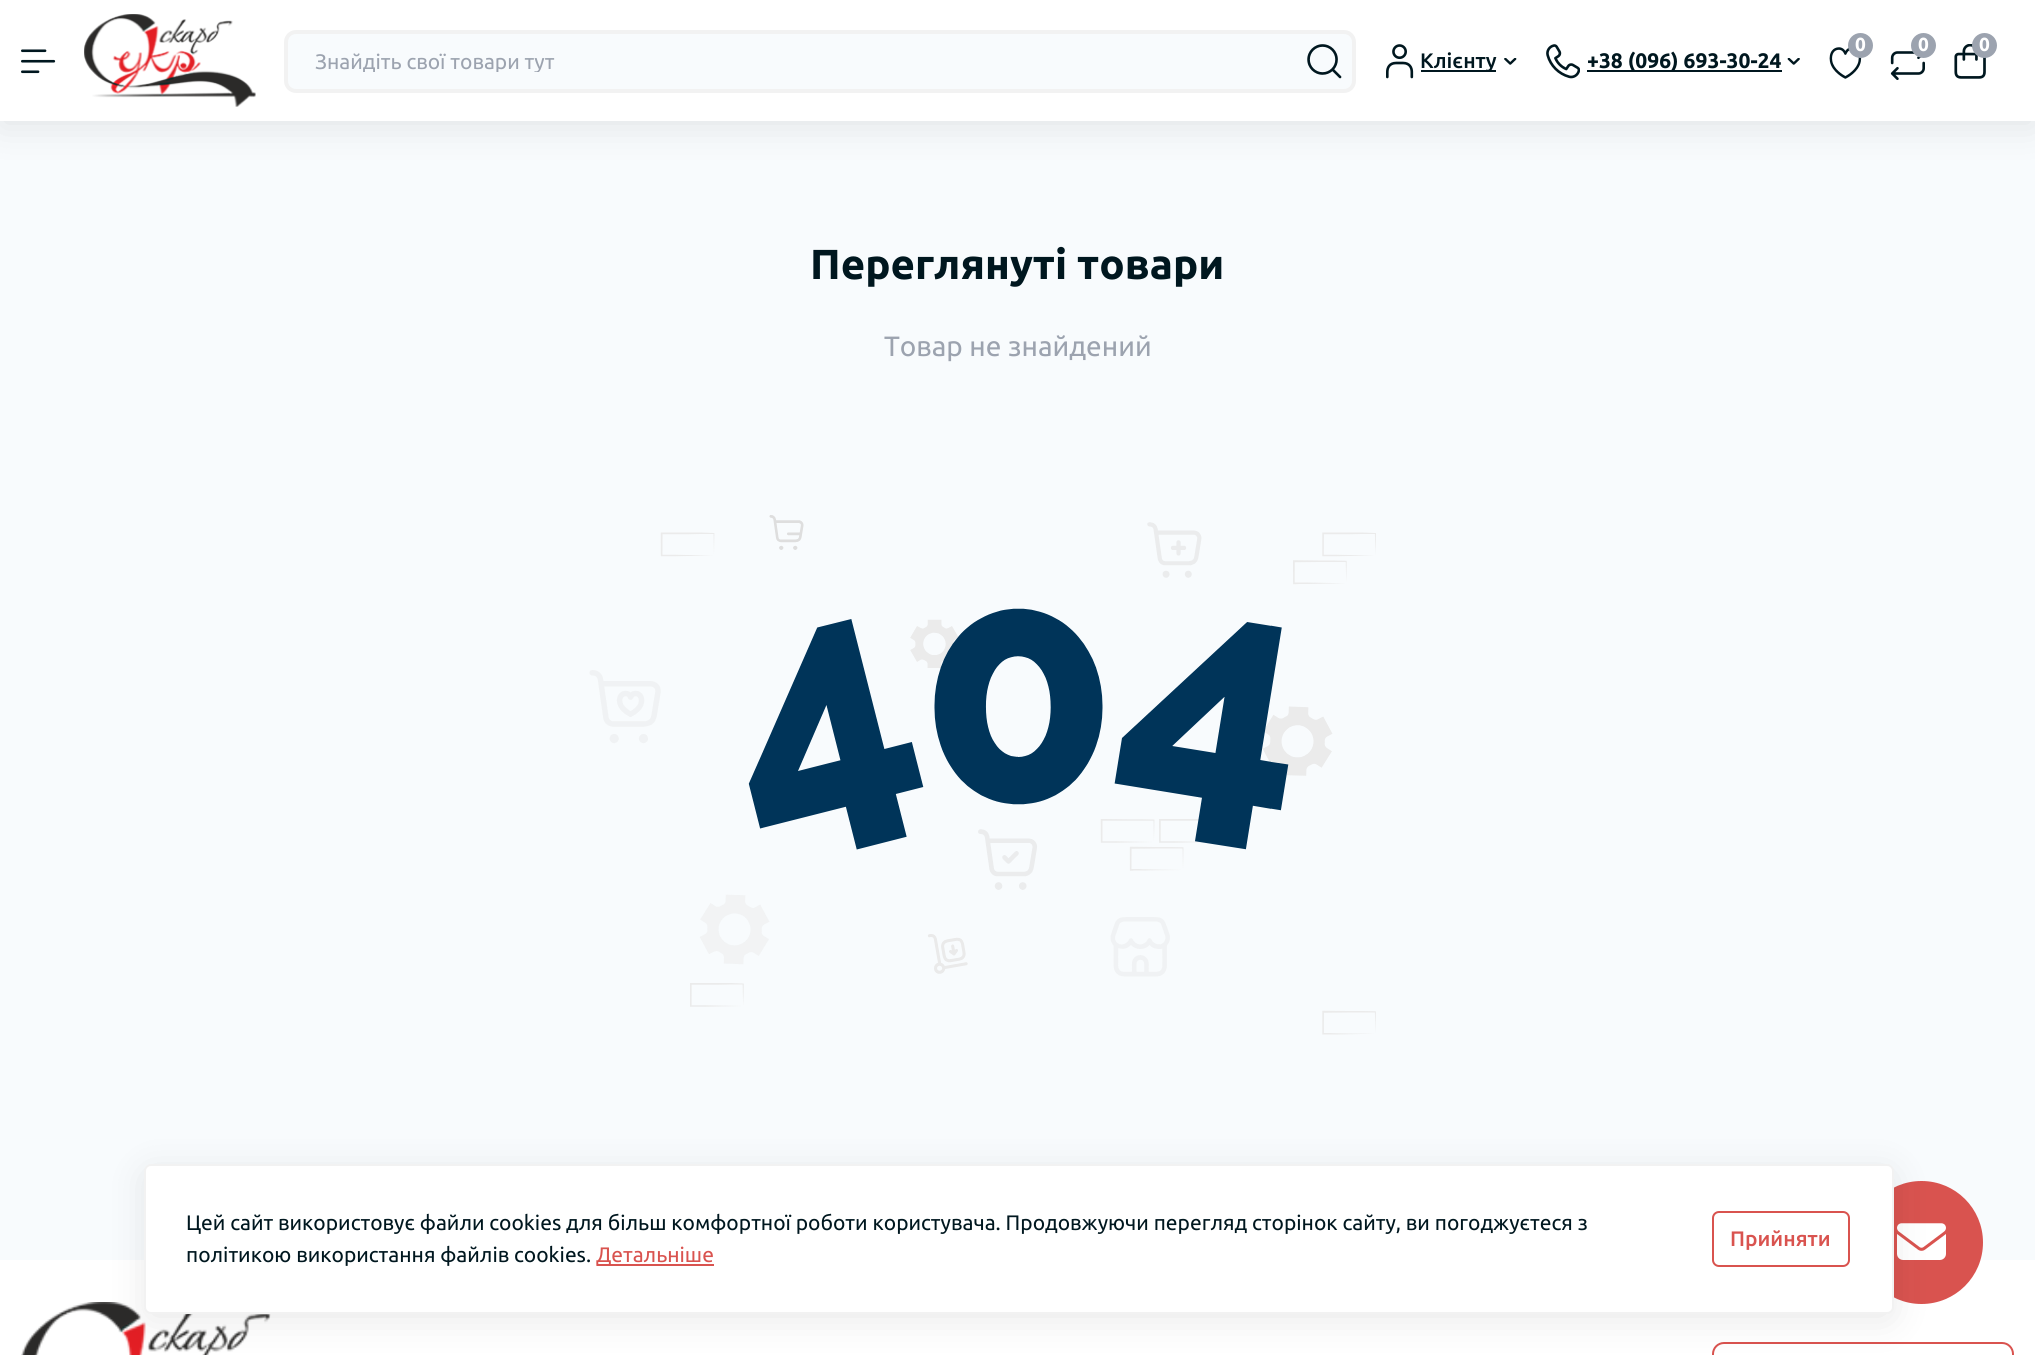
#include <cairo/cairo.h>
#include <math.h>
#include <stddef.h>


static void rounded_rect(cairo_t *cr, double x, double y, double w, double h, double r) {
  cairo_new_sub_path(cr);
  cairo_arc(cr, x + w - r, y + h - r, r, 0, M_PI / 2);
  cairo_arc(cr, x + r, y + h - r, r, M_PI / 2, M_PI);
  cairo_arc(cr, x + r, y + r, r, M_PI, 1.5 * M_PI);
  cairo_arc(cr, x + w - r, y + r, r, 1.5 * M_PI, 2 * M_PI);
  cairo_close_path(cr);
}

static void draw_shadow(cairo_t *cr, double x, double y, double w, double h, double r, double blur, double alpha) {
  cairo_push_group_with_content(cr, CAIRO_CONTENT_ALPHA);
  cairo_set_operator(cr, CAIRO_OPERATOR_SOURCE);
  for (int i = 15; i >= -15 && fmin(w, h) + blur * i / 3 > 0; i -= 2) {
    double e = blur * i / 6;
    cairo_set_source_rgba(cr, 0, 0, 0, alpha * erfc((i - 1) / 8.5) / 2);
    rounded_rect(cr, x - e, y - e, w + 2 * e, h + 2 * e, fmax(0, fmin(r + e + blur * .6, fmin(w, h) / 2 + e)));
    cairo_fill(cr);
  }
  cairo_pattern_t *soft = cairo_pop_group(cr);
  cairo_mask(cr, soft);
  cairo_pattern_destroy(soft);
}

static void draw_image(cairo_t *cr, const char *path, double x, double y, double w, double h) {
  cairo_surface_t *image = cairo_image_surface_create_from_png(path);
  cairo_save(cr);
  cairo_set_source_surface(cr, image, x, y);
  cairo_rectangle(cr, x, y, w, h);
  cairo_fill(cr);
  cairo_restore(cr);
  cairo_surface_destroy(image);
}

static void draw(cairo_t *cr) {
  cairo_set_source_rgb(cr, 248 / 255.0, 251 / 255.0, 253 / 255.0);
  cairo_paint(cr);
  cairo_set_source_rgb(cr, 37 / 255.0, 38 / 255.0, 39 / 255.0);
  draw_shadow(cr, 0, 7, 2035, 121, 0, 17.5, 0.1);
  cairo_set_source_rgb(cr, 1, 1, 1);
  cairo_rectangle(cr, 0, 0, 2035, 121);
  cairo_fill(cr);
  draw_image(cr, "images/1.png", 21, 49, 35, 25);
  draw_image(cr, "images/2.png", 84, 14, 172, 93);
  draw_image(cr, "images/3.png", 1829, 47, 33, 32);
  cairo_set_source_rgb(cr, 156 / 255.0, 163 / 255.0, 175 / 255.0);
  cairo_arc(cr, 1860.5, 45.5, 12.5, 0, 2 * M_PI);
  cairo_fill(cr);
  draw_image(cr, "images/4.png", 1890, 51, 35, 29);
  cairo_arc(cr, 1923.5, 45.5, 12.5, 0, 2 * M_PI);
  cairo_fill(cr);
  draw_image(cr, "images/5.png", 1954, 44, 32, 35);
  cairo_arc(cr, 1984.5, 45.5, 12.5, 0, 2 * M_PI);
  cairo_fill(cr);
  cairo_set_source_rgb(cr, 248 / 255.0, 251 / 255.0, 253 / 255.0);
  rounded_rect(cr, 286, 32, 1068, 59, 10);
  cairo_fill_preserve(cr);
  cairo_set_source_rgb(cr, 242 / 255.0, 242 / 255.0, 242 / 255.0);
  cairo_set_line_width(cr, 4);
  cairo_stroke(cr);
  draw_image(cr, "images/6.png", 1307, 44, 35, 35);
  draw_image(cr, "images/7.png", 1386, 44, 28, 35);
  cairo_set_source_rgb(cr, 0, 23 / 255.0, 31 / 255.0);
  cairo_rectangle(cr, 1421, 70, 75, 2);
  cairo_fill(cr);
  draw_image(cr, "images/8.png", 1504, 58, 13, 7);
  draw_image(cr, "images/9.png", 1546, 44, 34, 35);
  cairo_rectangle(cr, 1587, 70, 195, 2);
  cairo_fill(cr);
  draw_image(cr, "images/10.png", 1787, 58, 13, 7);
  draw_image(cr, "images/11.png", 589, 515, 787, 520);
  cairo_set_source_rgb(cr, 1, 1, 1);
  cairo_rectangle(cr, 0, 1260, 2035, 95);
  cairo_fill(cr);
  cairo_set_source_rgb(cr, 217 / 255.0, 83 / 255.0, 79 / 255.0);
  cairo_arc(cr, 1921.5, 1242.5, 61.5, 0, 2 * M_PI);
  cairo_fill(cr);
  draw_image(cr, "images/12.png", 1897, 1223, 49, 37);
  draw_image(cr, "images/13.png", 21, 1302, 250, 53);
  rounded_rect(cr, 1713, 1343, 300, 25, 11);
  cairo_set_line_width(cr, 2);
  cairo_stroke(cr);
  cairo_set_source_rgb(cr, 37 / 255.0, 38 / 255.0, 39 / 255.0);
  draw_shadow(cr, 144, 1171, 1750, 150, 7, 17.5, 0.1);
  cairo_set_source_rgb(cr, 1, 1, 1);
  rounded_rect(cr, 145, 1165, 1748, 148, 6);
  cairo_fill_preserve(cr);
  cairo_set_source_rgb(cr, 242 / 255.0, 242 / 255.0, 242 / 255.0);
  cairo_stroke(cr);
  cairo_set_source_rgb(cr, 217 / 255.0, 83 / 255.0, 79 / 255.0);
  cairo_rectangle(cr, 597, 1264, 117, 2);
  cairo_fill(cr);
  rounded_rect(cr, 1713, 1212, 136, 54, 6);
  cairo_stroke(cr);
  cairo_select_font_face(cr, "Ubuntu", CAIRO_FONT_SLANT_NORMAL, CAIRO_FONT_WEIGHT_BOLD);
  cairo_set_font_size(cr, 19);
  cairo_set_source_rgb(cr, 1, 1, 1);
  cairo_move_to(cr, 1855, 51);
  cairo_show_text(cr, "0");
  cairo_move_to(cr, 1918, 51);
  cairo_show_text(cr, "0");
  cairo_move_to(cr, 1979, 51);
  cairo_show_text(cr, "0");
  cairo_save(cr);
  cairo_rectangle(cr, 315, 49, 1010, 23);
  cairo_clip(cr);
  cairo_select_font_face(cr, "Ubuntu", CAIRO_FONT_SLANT_NORMAL, CAIRO_FONT_WEIGHT_NORMAL);
  cairo_set_font_size(cr, 21);
  cairo_set_source_rgb(cr, 156 / 255.0, 163 / 255.0, 175 / 255.0);
  cairo_move_to(cr, 315, 69);
  cairo_show_text(cr, "Знайдіть свої товари тут");
  cairo_restore(cr);
  cairo_select_font_face(cr, "Ubuntu Medium", CAIRO_FONT_SLANT_NORMAL, CAIRO_FONT_WEIGHT_NORMAL);
  cairo_set_font_size(cr, 21);
  cairo_set_source_rgb(cr, 0, 23 / 255.0, 31 / 255.0);
  cairo_move_to(cr, 1420, 68);
  cairo_show_text(cr, "Клієнту");
  cairo_select_font_face(cr, "Ubuntu", CAIRO_FONT_SLANT_NORMAL, CAIRO_FONT_WEIGHT_BOLD);
  cairo_move_to(cr, 1587, 68);
  cairo_show_text(cr, "+38 (096) 693-30-24");
  cairo_set_font_size(cr, 42);
  cairo_move_to(cr, 810, 279);
  cairo_show_text(cr, "Переглянуті товари");
  cairo_select_font_face(cr, "Ubuntu", CAIRO_FONT_SLANT_NORMAL, CAIRO_FONT_WEIGHT_NORMAL);
  cairo_set_font_size(cr, 28);
  cairo_set_source_rgb(cr, 156 / 255.0, 163 / 255.0, 175 / 255.0);
  cairo_move_to(cr, 884, 356);
  cairo_show_text(cr, "Товар не знайдений");
  cairo_set_font_size(cr, 21);
  cairo_set_source_rgb(cr, 0, 23 / 255.0, 31 / 255.0);
  cairo_move_to(cr, 186, 1230);
  cairo_show_text(cr, "Цей сайт використовує файли cookies для більш комфортної роботи користувача. Продовжуючи перегляд сторінок сайту, ви погоджуєтеся з");
  cairo_move_to(cr, 186, 1262);
  cairo_show_text(cr, "політикою використання файлів cookies.");
  cairo_set_source_rgb(cr, 217 / 255.0, 83 / 255.0, 79 / 255.0);
  cairo_move_to(cr, 596, 1262);
  cairo_show_text(cr, "Детальніше");
  cairo_select_font_face(cr, "Ubuntu Medium", CAIRO_FONT_SLANT_NORMAL, CAIRO_FONT_WEIGHT_NORMAL);
  cairo_move_to(cr, 1730, 1246);
  cairo_show_text(cr, "Прийняти");
}

int main(void) {
  cairo_surface_t *surface = cairo_image_surface_create(CAIRO_FORMAT_RGB24, 2035, 1355);
  cairo_t *cr = cairo_create(surface);
  cairo_font_options_t *options = cairo_font_options_create();
  cairo_font_options_set_hint_metrics(options, CAIRO_HINT_METRICS_OFF);
  cairo_font_options_set_hint_style(options, CAIRO_HINT_STYLE_NONE);
  cairo_set_font_options(cr, options);
  cairo_set_miter_limit(cr, 4);
  draw(cr);
  cairo_surface_write_to_png(surface, "out.png");
  cairo_font_options_destroy(options);
  cairo_destroy(cr);
  cairo_surface_destroy(surface);
  return 0;
}
